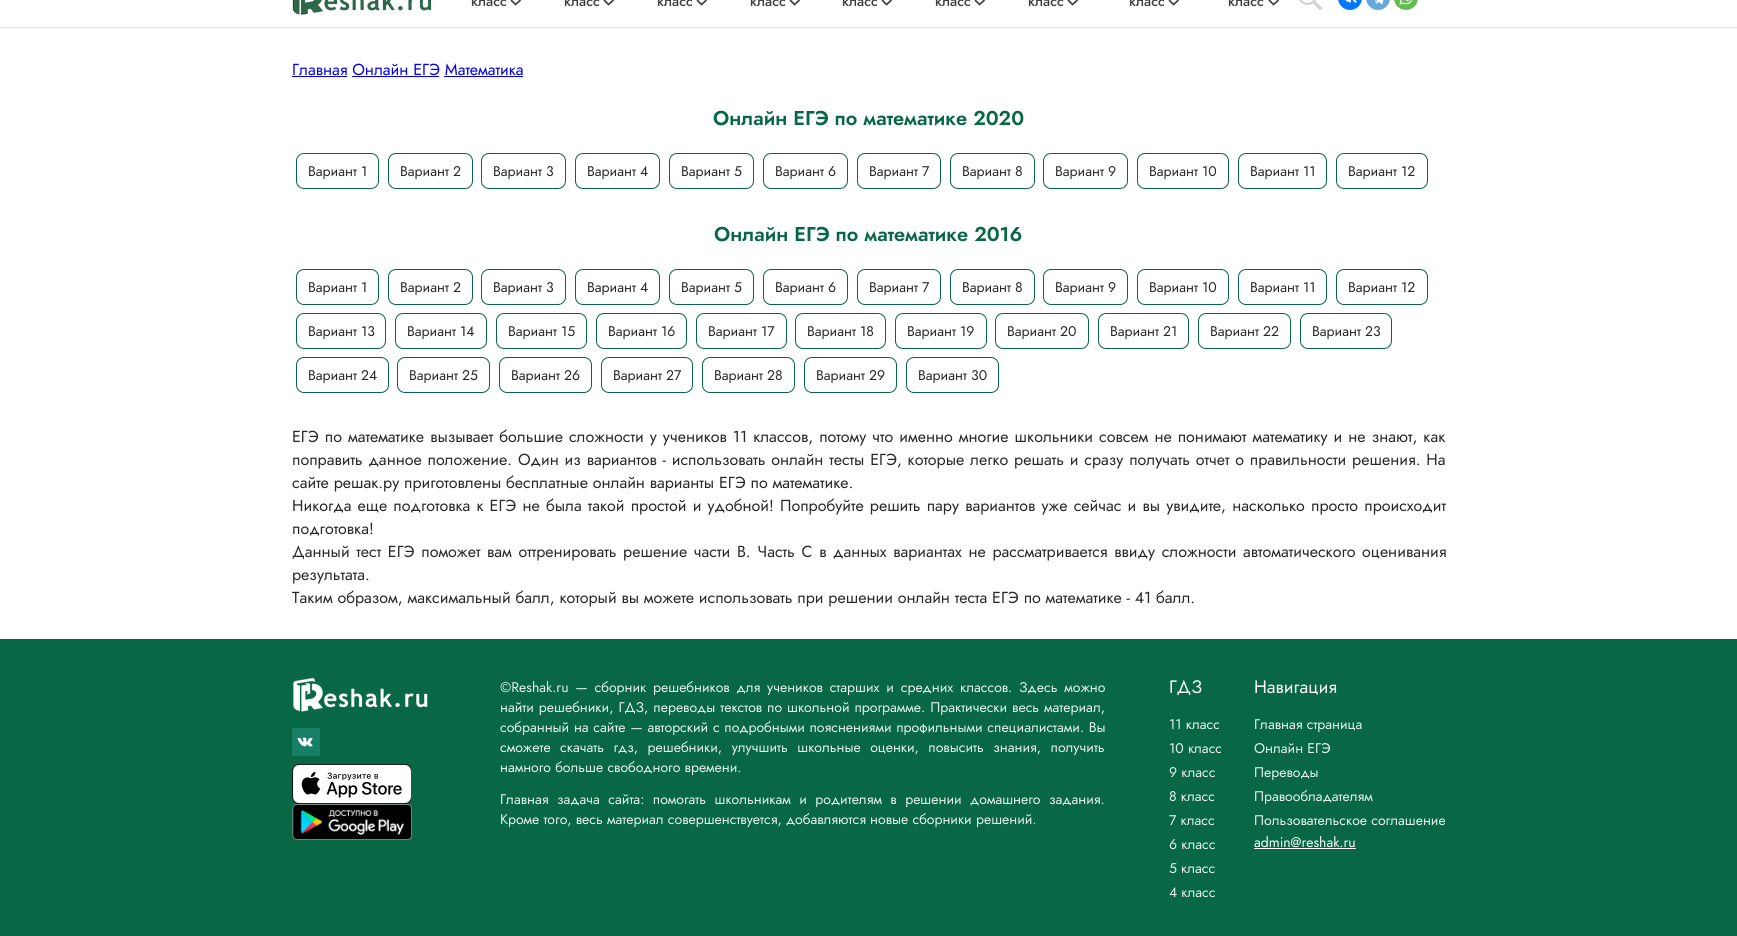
#include <cairo/cairo.h>
#include <math.h>
#include <stddef.h>


static void draw_spaced(cairo_t *cr, double x, double y, const char *s, double letter, double word) {
  cairo_move_to(cr, x, y);
  while (*s) {
    char ch[5] = {0};
    int n = 0;
    do ch[n++] = *s++; while ((*s & 0xC0) == 0x80);
    cairo_show_text(cr, ch);
    cairo_rel_move_to(cr, letter + word * (*ch == ' '), 0);
  }
}

static void rounded_rect(cairo_t *cr, double x, double y, double w, double h, double r) {
  cairo_new_sub_path(cr);
  cairo_arc(cr, x + w - r, y + h - r, r, 0, M_PI / 2);
  cairo_arc(cr, x + r, y + h - r, r, M_PI / 2, M_PI);
  cairo_arc(cr, x + r, y + r, r, M_PI, 1.5 * M_PI);
  cairo_arc(cr, x + w - r, y + r, r, 1.5 * M_PI, 2 * M_PI);
  cairo_close_path(cr);
}

static void draw_image(cairo_t *cr, const char *path, double x, double y, double w, double h) {
  cairo_surface_t *image = cairo_image_surface_create_from_png(path);
  cairo_save(cr);
  cairo_set_source_surface(cr, image, x, y);
  cairo_rectangle(cr, x, y, w, h);
  cairo_fill(cr);
  cairo_restore(cr);
  cairo_surface_destroy(image);
}

static void draw(cairo_t *cr) {
  cairo_set_source_rgb(cr, 1, 1, 1);
  cairo_paint(cr);
  cairo_set_source_rgb(cr, 224 / 255.0, 224 / 255.0, 224 / 255.0);
  cairo_rectangle(cr, 0, 27, 1737, 1);
  cairo_fill(cr);
  draw_image(cr, "images/1.png", 292, 0, 140, 15);
  cairo_new_path(cr);
  cairo_move_to(cr, 511, 0);
  cairo_line_to(cr, 515.5, 4.5);
  cairo_line_to(cr, 520.5, 0);
  cairo_set_source_rgb(cr, 61 / 255.0, 61 / 255.0, 61 / 255.0);
  cairo_set_line_width(cr, 1.7);
  cairo_stroke(cr);
  cairo_new_path(cr);
  cairo_move_to(cr, 604, 0);
  cairo_line_to(cr, 608.5, 4.5);
  cairo_line_to(cr, 613.5, 0);
  cairo_stroke(cr);
  cairo_new_path(cr);
  cairo_move_to(cr, 697, 0);
  cairo_line_to(cr, 701.5, 4.5);
  cairo_line_to(cr, 706.5, 0);
  cairo_stroke(cr);
  cairo_new_path(cr);
  cairo_move_to(cr, 790, 0);
  cairo_line_to(cr, 794.5, 4.5);
  cairo_line_to(cr, 799.5, 0);
  cairo_stroke(cr);
  cairo_new_path(cr);
  cairo_move_to(cr, 882, 0);
  cairo_line_to(cr, 886.5, 4.5);
  cairo_line_to(cr, 891.5, 0);
  cairo_stroke(cr);
  cairo_new_path(cr);
  cairo_move_to(cr, 975, 0);
  cairo_line_to(cr, 979.5, 4.5);
  cairo_line_to(cr, 984.5, 0);
  cairo_stroke(cr);
  cairo_new_path(cr);
  cairo_move_to(cr, 1068, 0);
  cairo_line_to(cr, 1072.5, 4.5);
  cairo_line_to(cr, 1077.5, 0);
  cairo_stroke(cr);
  cairo_new_path(cr);
  cairo_move_to(cr, 1169, 0);
  cairo_line_to(cr, 1173.5, 4.5);
  cairo_line_to(cr, 1178.5, 0);
  cairo_stroke(cr);
  cairo_new_path(cr);
  cairo_move_to(cr, 1269, 0);
  cairo_line_to(cr, 1273.5, 4.5);
  cairo_line_to(cr, 1278.5, 0);
  cairo_stroke(cr);
  draw_image(cr, "images/2.png", 1299, 0, 23, 10);
  cairo_set_source_rgb(cr, 0, 119 / 255.0, 1);
  rounded_rect(cr, 1338, -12, 24, 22, 12);
  cairo_fill(cr);
  draw_image(cr, "images/3.png", 1345, 0, 12, 3);
  cairo_set_source_rgb(cr, 100 / 255.0, 169 / 255.0, 220 / 255.0);
  rounded_rect(cr, 1366, -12, 24, 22, 12);
  cairo_fill(cr);
  draw_image(cr, "images/4.png", 1375, 0, 9, 5);
  cairo_set_source_rgb(cr, 101 / 255.0, 188 / 255.0, 84 / 255.0);
  rounded_rect(cr, 1394, -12, 24, 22, 12);
  cairo_fill(cr);
  draw_image(cr, "images/5.png", 1399, 0, 14, 5);
  cairo_set_source_rgb(cr, 0, 0, 238 / 255.0);
  cairo_rectangle(cr, 292, 76, 55, 1);
  cairo_fill(cr);
  cairo_rectangle(cr, 352, 76, 87, 1);
  cairo_fill(cr);
  cairo_rectangle(cr, 444, 76, 79, 1);
  cairo_fill(cr);
  rounded_rect(cr, 296.5, 153.5, 82, 35, 7.5);
  cairo_set_source_rgb(cr, 8 / 255.0, 103 / 255.0, 69 / 255.0);
  cairo_set_line_width(cr, 1);
  cairo_stroke(cr);
  rounded_rect(cr, 388.5, 153.5, 84, 35, 7.5);
  cairo_stroke(cr);
  rounded_rect(cr, 481.5, 153.5, 84, 35, 7.5);
  cairo_stroke(cr);
  rounded_rect(cr, 575.5, 153.5, 84, 35, 7.5);
  cairo_stroke(cr);
  rounded_rect(cr, 669.5, 153.5, 84, 35, 7.5);
  cairo_stroke(cr);
  rounded_rect(cr, 763.5, 153.5, 84, 35, 7.5);
  cairo_stroke(cr);
  rounded_rect(cr, 857.5, 153.5, 83, 35, 7.5);
  cairo_stroke(cr);
  rounded_rect(cr, 950.5, 153.5, 84, 35, 7.5);
  cairo_stroke(cr);
  rounded_rect(cr, 1043.5, 153.5, 84, 35, 7.5);
  cairo_stroke(cr);
  rounded_rect(cr, 1137.5, 153.5, 91, 35, 7.5);
  cairo_stroke(cr);
  rounded_rect(cr, 1238.5, 153.5, 88, 35, 7.5);
  cairo_stroke(cr);
  rounded_rect(cr, 1336.5, 153.5, 91, 35, 7.5);
  cairo_stroke(cr);
  rounded_rect(cr, 296.5, 269.5, 82, 35, 7.5);
  cairo_stroke(cr);
  rounded_rect(cr, 388.5, 269.5, 84, 35, 7.5);
  cairo_stroke(cr);
  rounded_rect(cr, 481.5, 269.5, 84, 35, 7.5);
  cairo_stroke(cr);
  rounded_rect(cr, 575.5, 269.5, 84, 35, 7.5);
  cairo_stroke(cr);
  rounded_rect(cr, 669.5, 269.5, 84, 35, 7.5);
  cairo_stroke(cr);
  rounded_rect(cr, 763.5, 269.5, 84, 35, 7.5);
  cairo_stroke(cr);
  rounded_rect(cr, 857.5, 269.5, 83, 35, 7.5);
  cairo_stroke(cr);
  rounded_rect(cr, 950.5, 269.5, 84, 35, 7.5);
  cairo_stroke(cr);
  rounded_rect(cr, 1043.5, 269.5, 84, 35, 7.5);
  cairo_stroke(cr);
  rounded_rect(cr, 1137.5, 269.5, 91, 35, 7.5);
  cairo_stroke(cr);
  rounded_rect(cr, 1238.5, 269.5, 88, 35, 7.5);
  cairo_stroke(cr);
  rounded_rect(cr, 1336.5, 269.5, 91, 35, 7.5);
  cairo_stroke(cr);
  rounded_rect(cr, 296.5, 313.5, 89, 35, 7.5);
  cairo_stroke(cr);
  rounded_rect(cr, 395.5, 313.5, 91, 35, 7.5);
  cairo_stroke(cr);
  rounded_rect(cr, 496.5, 313.5, 90, 35, 7.5);
  cairo_stroke(cr);
  rounded_rect(cr, 596.5, 313.5, 90, 35, 7.5);
  cairo_stroke(cr);
  rounded_rect(cr, 696.5, 313.5, 90, 35, 7.5);
  cairo_stroke(cr);
  rounded_rect(cr, 795.5, 313.5, 90, 35, 7.5);
  cairo_stroke(cr);
  rounded_rect(cr, 895.5, 313.5, 91, 35, 7.5);
  cairo_stroke(cr);
  rounded_rect(cr, 995.5, 313.5, 93, 35, 7.5);
  cairo_stroke(cr);
  rounded_rect(cr, 1098.5, 313.5, 90, 35, 7.5);
  cairo_stroke(cr);
  rounded_rect(cr, 1198.5, 313.5, 92, 35, 7.5);
  cairo_stroke(cr);
  rounded_rect(cr, 1300.5, 313.5, 91, 35, 7.5);
  cairo_stroke(cr);
  rounded_rect(cr, 296.5, 357.5, 92, 35, 7.5);
  cairo_stroke(cr);
  rounded_rect(cr, 397.5, 357.5, 92, 35, 7.5);
  cairo_stroke(cr);
  rounded_rect(cr, 499.5, 357.5, 92, 35, 7.5);
  cairo_stroke(cr);
  rounded_rect(cr, 601.5, 357.5, 91, 35, 7.5);
  cairo_stroke(cr);
  rounded_rect(cr, 702.5, 357.5, 92, 35, 7.5);
  cairo_stroke(cr);
  rounded_rect(cr, 804.5, 357.5, 92, 35, 7.5);
  cairo_stroke(cr);
  rounded_rect(cr, 906.5, 357.5, 92, 35, 7.5);
  cairo_stroke(cr);
  cairo_rectangle(cr, 0, 639, 1737, 297);
  cairo_fill(cr);
  draw_image(cr, "images/6.png", 293, 677, 135, 35);
  cairo_set_source_rgb(cr, 23 / 255.0, 128 / 255.0, 100 / 255.0);
  cairo_rectangle(cr, 292, 728, 28, 28);
  cairo_fill(cr);
  draw_image(cr, "images/7.png", 297, 737, 16, 10);
  draw_image(cr, "images/8.png", 292, 764, 119, 40);
  draw_image(cr, "images/9.png", 292, 804, 120, 36);
  cairo_set_source_rgb(cr, 1, 1, 1);
  cairo_rectangle(cr, 1254, 848, 102, 1);
  cairo_fill(cr);
  cairo_select_font_face(cr, "Jost Medium", CAIRO_FONT_SLANT_NORMAL, CAIRO_FONT_WEIGHT_NORMAL);
  cairo_set_font_size(cr, 14);
  cairo_set_source_rgb(cr, 61 / 255.0, 61 / 255.0, 61 / 255.0);
  cairo_move_to(cr, 471, 6);
  cairo_show_text(cr, "класс");
  cairo_move_to(cr, 564, 6);
  cairo_show_text(cr, "класс");
  cairo_move_to(cr, 657, 6);
  cairo_show_text(cr, "класс");
  cairo_move_to(cr, 750, 6);
  cairo_show_text(cr, "класс");
  cairo_move_to(cr, 842, 6);
  cairo_show_text(cr, "класс");
  cairo_move_to(cr, 935, 6);
  cairo_show_text(cr, "класс");
  cairo_move_to(cr, 1028, 6);
  cairo_show_text(cr, "класс");
  cairo_move_to(cr, 1129, 6);
  cairo_show_text(cr, "класс");
  cairo_move_to(cr, 1228, 6);
  cairo_show_text(cr, "класс");
  cairo_select_font_face(cr, "Jost", CAIRO_FONT_SLANT_NORMAL, CAIRO_FONT_WEIGHT_NORMAL);
  cairo_set_font_size(cr, 16);
  cairo_set_source_rgb(cr, 0, 0, 238 / 255.0);
  cairo_move_to(cr, 292, 75);
  cairo_show_text(cr, "Главная Онлайн ЕГЭ Математика");
  cairo_select_font_face(cr, "Jost SemiBold", CAIRO_FONT_SLANT_NORMAL, CAIRO_FONT_WEIGHT_NORMAL);
  cairo_set_font_size(cr, 20);
  cairo_set_source_rgb(cr, 8 / 255.0, 103 / 255.0, 69 / 255.0);
  cairo_move_to(cr, 713, 125);
  cairo_show_text(cr, "Онлайн ЕГЭ по математике 2020");
  cairo_select_font_face(cr, "Jost", CAIRO_FONT_SLANT_NORMAL, CAIRO_FONT_WEIGHT_NORMAL);
  cairo_set_font_size(cr, 14);
  cairo_set_source_rgb(cr, 40 / 255.0, 40 / 255.0, 40 / 255.0);
  cairo_move_to(cr, 308, 176);
  cairo_show_text(cr, "Вариант 1");
  cairo_move_to(cr, 400, 176);
  cairo_show_text(cr, "Вариант 2");
  cairo_move_to(cr, 493, 176);
  cairo_show_text(cr, "Вариант 3");
  cairo_move_to(cr, 587, 176);
  cairo_show_text(cr, "Вариант 4");
  cairo_move_to(cr, 681, 176);
  cairo_show_text(cr, "Вариант 5");
  cairo_move_to(cr, 775, 176);
  cairo_show_text(cr, "Вариант 6");
  cairo_move_to(cr, 869, 176);
  cairo_show_text(cr, "Вариант 7");
  cairo_move_to(cr, 962, 176);
  cairo_show_text(cr, "Вариант 8");
  cairo_move_to(cr, 1055, 176);
  cairo_show_text(cr, "Вариант 9");
  cairo_move_to(cr, 1149, 176);
  cairo_show_text(cr, "Вариант 10");
  cairo_move_to(cr, 1250, 176);
  cairo_show_text(cr, "Вариант 11");
  cairo_move_to(cr, 1348, 176);
  cairo_show_text(cr, "Вариант 12");
  cairo_select_font_face(cr, "Jost SemiBold", CAIRO_FONT_SLANT_NORMAL, CAIRO_FONT_WEIGHT_NORMAL);
  cairo_set_font_size(cr, 20);
  cairo_set_source_rgb(cr, 8 / 255.0, 103 / 255.0, 69 / 255.0);
  cairo_move_to(cr, 714, 241);
  cairo_show_text(cr, "Онлайн ЕГЭ по математике 2016");
  cairo_select_font_face(cr, "Jost", CAIRO_FONT_SLANT_NORMAL, CAIRO_FONT_WEIGHT_NORMAL);
  cairo_set_font_size(cr, 14);
  cairo_set_source_rgb(cr, 40 / 255.0, 40 / 255.0, 40 / 255.0);
  cairo_move_to(cr, 308, 292);
  cairo_show_text(cr, "Вариант 1");
  cairo_move_to(cr, 400, 292);
  cairo_show_text(cr, "Вариант 2");
  cairo_move_to(cr, 493, 292);
  cairo_show_text(cr, "Вариант 3");
  cairo_move_to(cr, 587, 292);
  cairo_show_text(cr, "Вариант 4");
  cairo_move_to(cr, 681, 292);
  cairo_show_text(cr, "Вариант 5");
  cairo_move_to(cr, 775, 292);
  cairo_show_text(cr, "Вариант 6");
  cairo_move_to(cr, 869, 292);
  cairo_show_text(cr, "Вариант 7");
  cairo_move_to(cr, 962, 292);
  cairo_show_text(cr, "Вариант 8");
  cairo_move_to(cr, 1055, 292);
  cairo_show_text(cr, "Вариант 9");
  cairo_move_to(cr, 1149, 292);
  cairo_show_text(cr, "Вариант 10");
  cairo_move_to(cr, 1250, 292);
  cairo_show_text(cr, "Вариант 11");
  cairo_move_to(cr, 1348, 292);
  cairo_show_text(cr, "Вариант 12");
  cairo_move_to(cr, 308, 336);
  cairo_show_text(cr, "Вариант 13");
  cairo_move_to(cr, 407, 336);
  cairo_show_text(cr, "Вариант 14");
  cairo_move_to(cr, 508, 336);
  cairo_show_text(cr, "Вариант 15");
  cairo_move_to(cr, 608, 336);
  cairo_show_text(cr, "Вариант 16");
  cairo_move_to(cr, 708, 336);
  cairo_show_text(cr, "Вариант 17");
  cairo_move_to(cr, 807, 336);
  cairo_show_text(cr, "Вариант 18");
  cairo_move_to(cr, 907, 336);
  cairo_show_text(cr, "Вариант 19");
  cairo_move_to(cr, 1007, 336);
  cairo_show_text(cr, "Вариант 20");
  cairo_move_to(cr, 1110, 336);
  cairo_show_text(cr, "Вариант 21");
  cairo_move_to(cr, 1210, 336);
  cairo_show_text(cr, "Вариант 22");
  cairo_move_to(cr, 1312, 336);
  cairo_show_text(cr, "Вариант 23");
  cairo_move_to(cr, 308, 380);
  cairo_show_text(cr, "Вариант 24");
  cairo_move_to(cr, 409, 380);
  cairo_show_text(cr, "Вариант 25");
  cairo_move_to(cr, 511, 380);
  cairo_show_text(cr, "Вариант 26");
  cairo_move_to(cr, 613, 380);
  cairo_show_text(cr, "Вариант 27");
  cairo_move_to(cr, 714, 380);
  cairo_show_text(cr, "Вариант 28");
  cairo_move_to(cr, 816, 380);
  cairo_show_text(cr, "Вариант 29");
  cairo_move_to(cr, 918, 380);
  cairo_show_text(cr, "Вариант 30");
  cairo_set_font_size(cr, 16);
  draw_spaced(cr, 292, 442, "ЕГЭ по математике вызывает большие сложности у учеников 11 классов, потому что именно многие школьники совсем не понимают математику и не знают, как", 0, 1.25);
  draw_spaced(cr, 292, 465, "поправить данное положение. Один из вариантов - использовать онлайн тесты ЕГЭ, которые легко решать и сразу получать отчет о правильности решения. На", 0, 1);
  cairo_move_to(cr, 292, 488);
  cairo_show_text(cr, "сайте решак.ру приготовлены бесплатные онлайн варианты ЕГЭ по математике.");
  draw_spaced(cr, 292, 511, "Никогда еще подготовка к ЕГЭ не была такой простой и удобной! Попробуйте решить пару вариантов уже сейчас и вы увидите, насколько просто происходит", 0, 1.35);
  cairo_move_to(cr, 292, 534);
  cairo_show_text(cr, "подготовка!");
  draw_spaced(cr, 292, 557, "Данный тест ЕГЭ поможет вам оттренировать решение части В. Часть С в данных вариантах не рассматривается ввиду сложности автоматического оценивания", 0, 1.9);
  cairo_move_to(cr, 292, 580);
  cairo_show_text(cr, "результата.");
  cairo_move_to(cr, 292, 603);
  cairo_show_text(cr, "Таким образом, максимальный балл, который вы можете использовать при решении онлайн теста ЕГЭ по математике - 41 балл.");
  cairo_set_font_size(cr, 14);
  cairo_set_source_rgb(cr, 230 / 255.0, 242 / 255.0, 238 / 255.0);
  draw_spaced(cr, 500, 692, "©Reshak.ru — сборник решебников для учеников старших и средних классов. Здесь можно", 0, 2.6);
  draw_spaced(cr, 500, 712, "найти решебники, ГДЗ, переводы текстов по школьной программе. Практически весь материал,", 0, 0.75);
  draw_spaced(cr, 500, 732, "собранный на сайте — авторский с подробными пояснениями профильными специалистами. Вы", 0, 0.5);
  draw_spaced(cr, 500, 752, "сможете скачать гдз, решебники, улучшить школьные оценки, повысить знания, получить", 0, 5.25);
  cairo_move_to(cr, 500, 772);
  cairo_show_text(cr, "намного больше свободного времени.");
  draw_spaced(cr, 500, 804, "Главная задача сайта: помогать школьникам и родителям в решении домашнего задания.", 0, 4.25);
  cairo_move_to(cr, 500, 824);
  cairo_show_text(cr, "Кроме того, весь материал совершенствуется, добавляются новые сборники решений.");
  cairo_set_font_size(cr, 18);
  cairo_set_source_rgb(cr, 1, 1, 1);
  cairo_move_to(cr, 1169, 693);
  cairo_show_text(cr, "ГДЗ");
  cairo_set_font_size(cr, 14);
  cairo_set_source_rgb(cr, 230 / 255.0, 242 / 255.0, 238 / 255.0);
  cairo_move_to(cr, 1169, 729);
  cairo_show_text(cr, "11 класс");
  cairo_move_to(cr, 1169, 753);
  cairo_show_text(cr, "10 класс");
  cairo_move_to(cr, 1169, 777);
  cairo_show_text(cr, "9 класс");
  cairo_move_to(cr, 1169, 801);
  cairo_show_text(cr, "8 класс");
  cairo_move_to(cr, 1169, 825);
  cairo_show_text(cr, "7 класс");
  cairo_move_to(cr, 1169, 849);
  cairo_show_text(cr, "6 класс");
  cairo_move_to(cr, 1169, 873);
  cairo_show_text(cr, "5 класс");
  cairo_move_to(cr, 1169, 897);
  cairo_show_text(cr, "4 класс");
  cairo_set_font_size(cr, 18);
  cairo_set_source_rgb(cr, 1, 1, 1);
  cairo_move_to(cr, 1254, 693);
  cairo_show_text(cr, "Навигация");
  cairo_set_font_size(cr, 14);
  cairo_set_source_rgb(cr, 230 / 255.0, 242 / 255.0, 238 / 255.0);
  cairo_move_to(cr, 1254, 729);
  cairo_show_text(cr, "Главная страница");
  cairo_move_to(cr, 1254, 753);
  cairo_show_text(cr, "Онлайн ЕГЭ");
  cairo_move_to(cr, 1254, 777);
  cairo_show_text(cr, "Переводы");
  cairo_move_to(cr, 1254, 801);
  cairo_show_text(cr, "Правообладателям");
  cairo_move_to(cr, 1254, 825);
  cairo_show_text(cr, "Пользовательское соглашение");
  cairo_set_source_rgb(cr, 1, 1, 1);
  cairo_move_to(cr, 1254, 847);
  cairo_show_text(cr, "admin@reshak.ru");
}

int main(void) {
  cairo_surface_t *surface = cairo_image_surface_create(CAIRO_FORMAT_RGB24, 1737, 936);
  cairo_t *cr = cairo_create(surface);
  cairo_font_options_t *options = cairo_font_options_create();
  cairo_font_options_set_hint_metrics(options, CAIRO_HINT_METRICS_OFF);
  cairo_font_options_set_hint_style(options, CAIRO_HINT_STYLE_NONE);
  cairo_set_font_options(cr, options);
  cairo_set_miter_limit(cr, 4);
  draw(cr);
  cairo_surface_write_to_png(surface, "out.png");
  cairo_font_options_destroy(options);
  cairo_destroy(cr);
  cairo_surface_destroy(surface);
  return 0;
}
